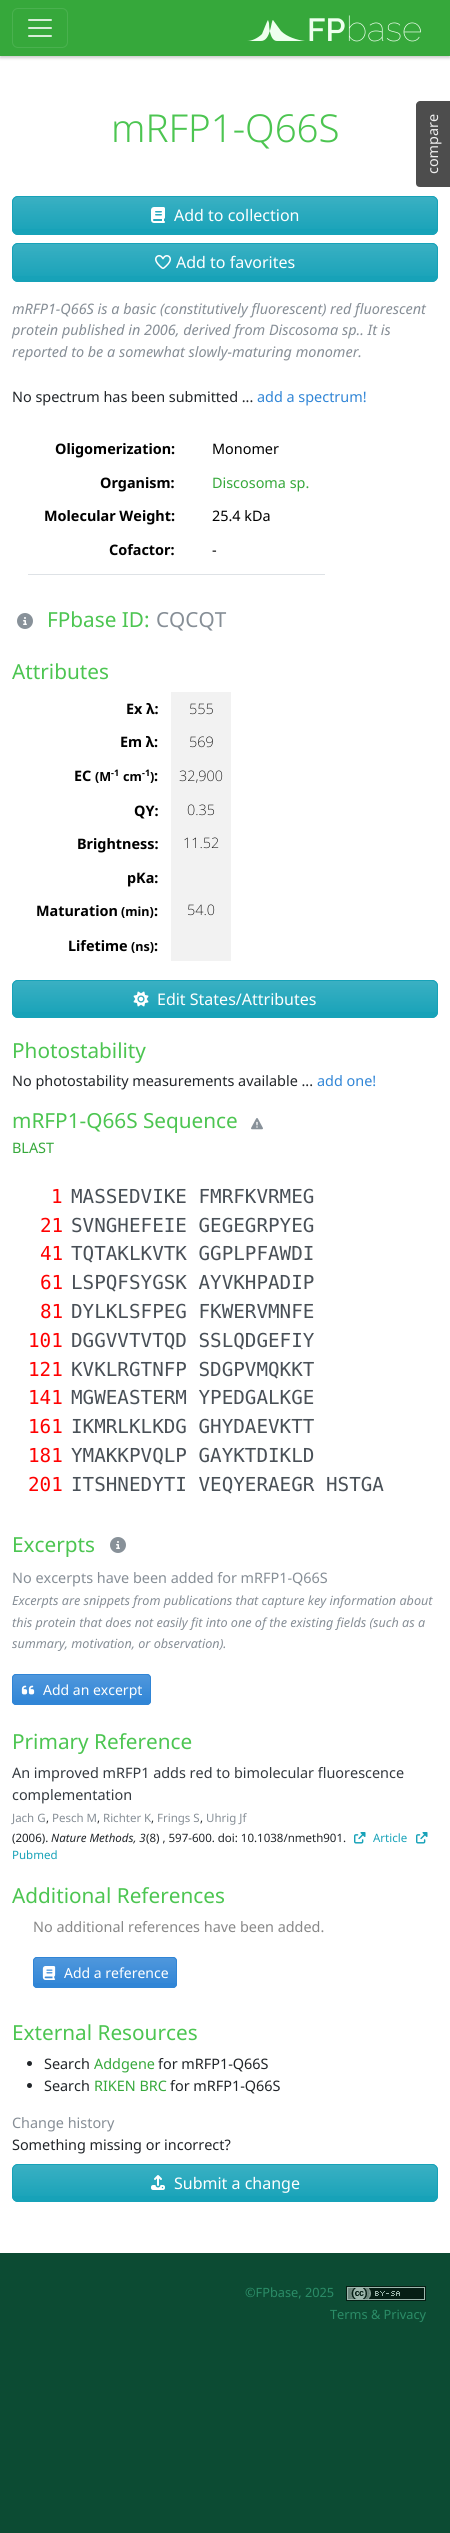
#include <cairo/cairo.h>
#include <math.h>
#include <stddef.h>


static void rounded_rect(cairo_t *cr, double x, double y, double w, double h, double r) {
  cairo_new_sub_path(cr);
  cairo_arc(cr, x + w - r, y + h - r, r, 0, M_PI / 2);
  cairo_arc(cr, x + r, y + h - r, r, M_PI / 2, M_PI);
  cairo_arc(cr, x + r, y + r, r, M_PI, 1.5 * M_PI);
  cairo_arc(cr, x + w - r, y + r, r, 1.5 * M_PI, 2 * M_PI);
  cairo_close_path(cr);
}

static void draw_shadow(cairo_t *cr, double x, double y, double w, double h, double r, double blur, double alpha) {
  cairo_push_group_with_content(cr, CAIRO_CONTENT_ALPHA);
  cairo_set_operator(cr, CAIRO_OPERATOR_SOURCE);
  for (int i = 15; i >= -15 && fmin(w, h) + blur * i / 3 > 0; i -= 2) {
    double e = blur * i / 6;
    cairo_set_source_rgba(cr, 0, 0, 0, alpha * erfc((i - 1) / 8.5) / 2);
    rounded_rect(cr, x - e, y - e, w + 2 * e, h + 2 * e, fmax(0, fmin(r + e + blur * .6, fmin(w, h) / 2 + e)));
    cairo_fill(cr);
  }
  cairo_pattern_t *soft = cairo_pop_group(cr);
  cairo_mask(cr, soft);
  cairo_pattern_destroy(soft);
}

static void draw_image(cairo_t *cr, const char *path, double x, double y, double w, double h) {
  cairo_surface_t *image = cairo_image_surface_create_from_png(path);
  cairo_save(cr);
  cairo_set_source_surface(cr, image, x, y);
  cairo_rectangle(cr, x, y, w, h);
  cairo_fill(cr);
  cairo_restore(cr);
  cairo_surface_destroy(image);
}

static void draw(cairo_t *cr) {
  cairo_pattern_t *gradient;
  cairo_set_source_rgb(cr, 1, 1, 1);
  cairo_paint(cr);
  cairo_set_source_rgb(cr, 0, 0, 0);
  draw_shadow(cr, 0, 2, 450, 56, 0, 1.5, 0.2);
  cairo_set_source_rgb(cr, 54 / 255.0, 168 / 255.0, 59 / 255.0);
  cairo_rectangle(cr, 0, 0, 450, 56);
  cairo_fill(cr);
  rounded_rect(cr, 12.5, 8.5, 55, 39, 5.5);
  cairo_set_source_rgb(cr, 74 / 255.0, 177 / 255.0, 79 / 255.0);
  cairo_set_line_width(cr, 1);
  cairo_stroke(cr);
  draw_image(cr, "images/1.png", 28, 19, 24, 18);
  cairo_set_source_rgb(cr, 238 / 255.0, 1, 238 / 255.0);
  cairo_set_fill_rule(cr, CAIRO_FILL_RULE_EVEN_ODD);
  cairo_new_path(cr);
  cairo_move_to(cr, 305, 41);
  cairo_curve_to(cr, 297, 40, 287, 37, 281, 31);
  cairo_line_to(cr, 273, 20);
  cairo_curve_to(cr, 271, 20, 271, 41, 261, 41);
  cairo_close_path(cr);
  cairo_move_to(cr, 277, 41);
  cairo_curve_to(cr, 270, 41, 269, 27, 269, 23);
  cairo_line_to(cr, 268, 20);
  cairo_curve_to(cr, 267, 21, 263, 32, 262, 34);
  cairo_curve_to(cr, 258, 38, 252, 41, 247, 41);
  cairo_close_path(cr);
  cairo_fill(cr);
  cairo_set_source_rgb(cr, 23 / 255.0, 162 / 255.0, 184 / 255.0);
  rounded_rect(cr, 12, 196, 426, 39, 6);
  cairo_fill(cr);
  cairo_save(cr);
  cairo_set_fill_rule(cr, CAIRO_FILL_RULE_WINDING);
  rounded_rect(cr, 12, 196, 426, 39, 6);
  cairo_clip(cr);
  gradient = cairo_pattern_create_linear(225, 197, 225, 234);
  cairo_pattern_add_color_stop_rgba(gradient, 0, 1, 1, 1, 0.15);
  cairo_pattern_add_color_stop_rgba(gradient, 1, 1, 1, 1, 0);
  cairo_set_source(cr, gradient);
  cairo_pattern_destroy(gradient);
  cairo_rectangle(cr, 12, 197, 426, 32);
  cairo_fill(cr);
  cairo_restore(cr);
  rounded_rect(cr, 12.5, 196.5, 425, 38, 5.5);
  cairo_stroke(cr);
  draw_image(cr, "images/2.png", 151, 207, 14, 16);
  rounded_rect(cr, 12, 243, 426, 39, 6);
  cairo_fill(cr);
  cairo_save(cr);
  cairo_set_fill_rule(cr, CAIRO_FILL_RULE_WINDING);
  rounded_rect(cr, 12, 243, 426, 39, 6);
  cairo_clip(cr);
  gradient = cairo_pattern_create_linear(225, 244, 225, 281);
  cairo_pattern_add_color_stop_rgba(gradient, 0, 1, 1, 1, 0.15);
  cairo_pattern_add_color_stop_rgba(gradient, 1, 1, 1, 1, 0);
  cairo_set_source(cr, gradient);
  cairo_pattern_destroy(gradient);
  cairo_rectangle(cr, 12, 244, 426, 32);
  cairo_fill(cr);
  cairo_restore(cr);
  rounded_rect(cr, 12.5, 243.5, 425, 38, 5.5);
  cairo_stroke(cr);
  draw_image(cr, "images/3.png", 155, 255, 16, 14);
  cairo_set_source_rgb(cr, 222 / 255.0, 226 / 255.0, 230 / 255.0);
  cairo_rectangle(cr, 28, 574, 297, 1);
  cairo_fill(cr);
  draw_image(cr, "images/4.png", 17, 613, 16, 16);
  cairo_set_source_rgb(cr, 242 / 255.0, 242 / 255.0, 242 / 255.0);
  cairo_rectangle(cr, 171, 692, 60, 269);
  cairo_fill(cr);
  cairo_set_source_rgb(cr, 23 / 255.0, 162 / 255.0, 184 / 255.0);
  rounded_rect(cr, 12, 980, 426, 38, 6);
  cairo_fill(cr);
  cairo_save(cr);
  cairo_set_fill_rule(cr, CAIRO_FILL_RULE_WINDING);
  rounded_rect(cr, 12, 980, 426, 38, 6);
  cairo_clip(cr);
  gradient = cairo_pattern_create_linear(225, 981, 225, 1017);
  cairo_pattern_add_color_stop_rgba(gradient, 0, 1, 1, 1, 0.15);
  cairo_pattern_add_color_stop_rgba(gradient, 1, 1, 1, 1, 0);
  cairo_set_source(cr, gradient);
  cairo_pattern_destroy(gradient);
  cairo_rectangle(cr, 12, 981, 426, 31);
  cairo_fill(cr);
  cairo_restore(cr);
  rounded_rect(cr, 12.5, 980.5, 425, 37, 5.5);
  cairo_stroke(cr);
  draw_image(cr, "images/5.png", 133, 991, 16, 16);
  draw_image(cr, "images/6.png", 251, 1118, 12, 12);
  draw_image(cr, "images/4.png", 110, 1537, 16, 16);
  cairo_set_source_rgb(cr, 48 / 255.0, 133 / 255.0, 214 / 255.0);
  rounded_rect(cr, 12, 1674, 139, 31, 4);
  cairo_fill(cr);
  gradient = cairo_pattern_create_linear(82, 1675, 82, 1704);
  cairo_pattern_add_color_stop_rgba(gradient, 0, 1, 1, 1, 0.15);
  cairo_pattern_add_color_stop_rgba(gradient, 1, 1, 1, 1, 0);
  cairo_set_source(cr, gradient);
  cairo_pattern_destroy(gradient);
  cairo_rectangle(cr, 12, 1675, 139, 25);
  cairo_fill(cr);
  rounded_rect(cr, 12.5, 1674.5, 138, 30, 3.5);
  cairo_set_source_rgb(cr, 48 / 255.0, 133 / 255.0, 214 / 255.0);
  cairo_stroke(cr);
  draw_image(cr, "images/7.png", 21, 1685, 14, 10);
  draw_image(cr, "images/8.png", 354, 1832, 12, 12);
  draw_image(cr, "images/8.png", 416, 1832, 12, 12);
  rounded_rect(cr, 33, 1957, 144, 31, 4);
  cairo_fill(cr);
  gradient = cairo_pattern_create_linear(105, 1958, 105, 1987);
  cairo_pattern_add_color_stop_rgba(gradient, 0, 1, 1, 1, 0.15);
  cairo_pattern_add_color_stop_rgba(gradient, 1, 1, 1, 1, 0);
  cairo_set_source(cr, gradient);
  cairo_pattern_destroy(gradient);
  cairo_rectangle(cr, 33, 1958, 144, 25);
  cairo_fill(cr);
  rounded_rect(cr, 33.5, 1957.5, 143, 30, 3.5);
  cairo_set_source_rgb(cr, 48 / 255.0, 133 / 255.0, 214 / 255.0);
  cairo_stroke(cr);
  draw_image(cr, "images/9.png", 42, 1966, 14, 14);
  cairo_set_source_rgb(cr, 33 / 255.0, 37 / 255.0, 41 / 255.0);
  cairo_arc(cr, 29.5, 2063.5, 2.5, 0, 2 * M_PI);
  cairo_fill(cr);
  cairo_arc(cr, 29.5, 2085.5, 2.5, 0, 2 * M_PI);
  cairo_fill(cr);
  cairo_set_source_rgb(cr, 23 / 255.0, 162 / 255.0, 184 / 255.0);
  rounded_rect(cr, 12, 2164, 426, 38, 6);
  cairo_fill(cr);
  cairo_save(cr);
  cairo_set_fill_rule(cr, CAIRO_FILL_RULE_WINDING);
  rounded_rect(cr, 12, 2164, 426, 38, 6);
  cairo_clip(cr);
  gradient = cairo_pattern_create_linear(225, 2165, 225, 2201);
  cairo_pattern_add_color_stop_rgba(gradient, 0, 1, 1, 1, 0.15);
  cairo_pattern_add_color_stop_rgba(gradient, 1, 1, 1, 1, 0);
  cairo_set_source(cr, gradient);
  cairo_pattern_destroy(gradient);
  cairo_rectangle(cr, 12, 2165, 426, 31);
  cairo_fill(cr);
  cairo_restore(cr);
  rounded_rect(cr, 12.5, 2164.5, 425, 37, 5.5);
  cairo_stroke(cr);
  draw_image(cr, "images/10.png", 151, 2175, 14, 15);
  cairo_set_source_rgb(cr, 77 / 255.0, 77 / 255.0, 77 / 255.0);
  cairo_set_fill_rule(cr, CAIRO_FILL_RULE_WINDING);
  cairo_new_path(cr);
  cairo_move_to(cr, 416, 183);
  cairo_line_to(cr, 416, 105);
  cairo_curve_to(cr, 416, 103, 418, 101, 420, 101);
  cairo_line_to(cr, 450, 101);
  cairo_line_to(cr, 450, 187);
  cairo_line_to(cr, 420, 187);
  cairo_curve_to(cr, 418, 187, 416, 186, 416, 183);
  cairo_close_path(cr);
  cairo_fill(cr);
  cairo_set_source_rgb(cr, 12 / 255.0, 75 / 255.0, 51 / 255.0);
  cairo_new_path(cr);
  cairo_move_to(cr, -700, 2253);
  cairo_line_to(cr, -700, 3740);
  cairo_line_to(cr, 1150, 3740);
  cairo_line_to(cr, 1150, 2253);
  cairo_line_to(cr, 450, 2253);
  cairo_line_to(cr, 450, 2340);
  cairo_line_to(cr, 0, 2340);
  cairo_line_to(cr, 0, 2253);
  cairo_close_path(cr);
  cairo_fill(cr);
  cairo_rectangle(cr, 0, 2253, 450, 87);
  cairo_fill(cr);
  draw_image(cr, "images/11.png", 346, 2286, 80, 15);
  cairo_select_font_face(cr, "Raleway SemiBold", CAIRO_FONT_SLANT_NORMAL, CAIRO_FONT_WEIGHT_NORMAL);
  cairo_set_font_size(cr, 32);
  cairo_set_source_rgb(cr, 238 / 255.0, 1, 238 / 255.0);
  cairo_move_to(cr, 307, 41);
  cairo_show_text(cr, "FP");
  cairo_select_font_face(cr, "Raleway Thin", CAIRO_FONT_SLANT_NORMAL, CAIRO_FONT_WEIGHT_NORMAL);
  cairo_set_font_size(cr, 35);
  cairo_move_to(cr, 346, 41);
  cairo_show_text(cr, "base");
  cairo_select_font_face(cr, "Noto Sans Light", CAIRO_FONT_SLANT_NORMAL, CAIRO_FONT_WEIGHT_NORMAL);
  cairo_set_font_size(cr, 38.5);
  cairo_set_source_rgb(cr, 76 / 255.0, 197 / 255.0, 81 / 255.0);
  cairo_move_to(cr, 111, 142);
  cairo_show_text(cr, "mRFP1-Q66S");
  cairo_select_font_face(cr, "Noto Sans", CAIRO_FONT_SLANT_NORMAL, CAIRO_FONT_WEIGHT_NORMAL);
  cairo_set_font_size(cr, 16);
  cairo_set_source_rgb(cr, 1, 1, 1);
  cairo_move_to(cr, 174, 221);
  cairo_show_text(cr, "Add to collection");
  cairo_move_to(cr, 176, 268);
  cairo_show_text(cr, "Add to favorites");
  cairo_select_font_face(cr, "Noto Sans", CAIRO_FONT_SLANT_ITALIC, CAIRO_FONT_WEIGHT_NORMAL);
  cairo_set_font_size(cr, 14.4);
  cairo_set_source_rgb(cr, 134 / 255.0, 142 / 255.0, 150 / 255.0);
  cairo_move_to(cr, 12, 314);
  cairo_show_text(cr, "mRFP1-Q66S is a basic (constitutively fluorescent) red fluorescent");
  cairo_move_to(cr, 12, 335);
  cairo_show_text(cr, "protein published in 2006, derived from Discosoma sp.. It is");
  cairo_move_to(cr, 12, 357);
  cairo_show_text(cr, "reported to be a somewhat slowly-maturing monomer.");
  cairo_select_font_face(cr, "Noto Sans", CAIRO_FONT_SLANT_NORMAL, CAIRO_FONT_WEIGHT_NORMAL);
  cairo_set_source_rgb(cr, 33 / 255.0, 37 / 255.0, 41 / 255.0);
  cairo_move_to(cr, 12, 402);
  cairo_show_text(cr, "No spectrum has been submitted ...");
  cairo_set_source_rgb(cr, 48 / 255.0, 133 / 255.0, 214 / 255.0);
  cairo_move_to(cr, 257, 402);
  cairo_show_text(cr, "add a spectrum!");
  cairo_select_font_face(cr, "Noto Sans", CAIRO_FONT_SLANT_NORMAL, CAIRO_FONT_WEIGHT_BOLD);
  cairo_set_source_rgb(cr, 0, 0, 0);
  cairo_move_to(cr, 55, 454);
  cairo_show_text(cr, "Oligomerization:");
  cairo_move_to(cr, 100, 488);
  cairo_show_text(cr, "Organism:");
  cairo_move_to(cr, 44, 521);
  cairo_show_text(cr, "Molecular Weight:");
  cairo_move_to(cr, 109, 555);
  cairo_show_text(cr, "Cofactor:");
  cairo_select_font_face(cr, "Noto Sans", CAIRO_FONT_SLANT_NORMAL, CAIRO_FONT_WEIGHT_NORMAL);
  cairo_move_to(cr, 212, 454);
  cairo_show_text(cr, "Monomer");
  cairo_set_source_rgb(cr, 54 / 255.0, 168 / 255.0, 59 / 255.0);
  cairo_move_to(cr, 212, 488);
  cairo_show_text(cr, "Discosoma sp.");
  cairo_set_source_rgb(cr, 0, 0, 0);
  cairo_move_to(cr, 212, 521);
  cairo_show_text(cr, "25.4 kDa");
  cairo_move_to(cr, 212, 555);
  cairo_show_text(cr, "-");
  cairo_set_font_size(cr, 20.75);
  cairo_set_source_rgb(cr, 76 / 255.0, 197 / 255.0, 81 / 255.0);
  cairo_move_to(cr, 47, 627);
  cairo_show_text(cr, "FPbase ID:");
  cairo_set_source_rgb(cr, 134 / 255.0, 142 / 255.0, 150 / 255.0);
  cairo_move_to(cr, 156, 627);
  cairo_show_text(cr, "CQCQT");
  cairo_set_source_rgb(cr, 76 / 255.0, 197 / 255.0, 81 / 255.0);
  cairo_move_to(cr, 12, 679);
  cairo_show_text(cr, "Attributes");
  cairo_select_font_face(cr, "Noto Sans", CAIRO_FONT_SLANT_NORMAL, CAIRO_FONT_WEIGHT_BOLD);
  cairo_set_font_size(cr, 14.4);
  cairo_set_source_rgb(cr, 0, 0, 0);
  cairo_move_to(cr, 126, 714);
  cairo_show_text(cr, "Ex λ:");
  cairo_move_to(cr, 120, 747);
  cairo_show_text(cr, "Em λ:");
  cairo_move_to(cr, 74, 781);
  cairo_show_text(cr, "EC");
  cairo_set_font_size(cr, 12.6);
  cairo_move_to(cr, 95, 781);
  cairo_show_text(cr, "(M");
  cairo_set_font_size(cr, 9);
  cairo_move_to(cr, 111, 776);
  cairo_show_text(cr, "-1");
  cairo_set_font_size(cr, 12.6);
  cairo_move_to(cr, 123, 781);
  cairo_show_text(cr, "cm");
  cairo_set_font_size(cr, 9);
  cairo_move_to(cr, 142, 776);
  cairo_show_text(cr, "-1");
  cairo_set_font_size(cr, 12.6);
  cairo_move_to(cr, 150, 781);
  cairo_show_text(cr, ")");
  cairo_set_font_size(cr, 14.4);
  cairo_move_to(cr, 154, 781);
  cairo_show_text(cr, ":");
  cairo_move_to(cr, 134, 816);
  cairo_show_text(cr, "QY:");
  cairo_move_to(cr, 77, 849);
  cairo_show_text(cr, "Brightness:");
  cairo_move_to(cr, 127, 883);
  cairo_show_text(cr, "pKa:");
  cairo_move_to(cr, 36, 916);
  cairo_show_text(cr, "Maturation");
  cairo_set_font_size(cr, 12.6);
  cairo_move_to(cr, 121, 916);
  cairo_show_text(cr, "(min)");
  cairo_set_font_size(cr, 14.4);
  cairo_move_to(cr, 154, 916);
  cairo_show_text(cr, ":");
  cairo_move_to(cr, 68, 951);
  cairo_show_text(cr, "Lifetime");
  cairo_set_font_size(cr, 12.6);
  cairo_move_to(cr, 131, 951);
  cairo_show_text(cr, "(ns)");
  cairo_set_font_size(cr, 14.4);
  cairo_move_to(cr, 154, 951);
  cairo_show_text(cr, ":");
  cairo_select_font_face(cr, "Noto Sans ExtraLight", CAIRO_FONT_SLANT_NORMAL, CAIRO_FONT_WEIGHT_NORMAL);
  cairo_move_to(cr, 189, 714);
  cairo_show_text(cr, "555");
  cairo_move_to(cr, 189, 747);
  cairo_show_text(cr, "569");
  cairo_move_to(cr, 179, 781);
  cairo_show_text(cr, "32,900");
  cairo_move_to(cr, 187, 815);
  cairo_show_text(cr, "0.35");
  cairo_move_to(cr, 183, 848);
  cairo_show_text(cr, "11.52");
  cairo_move_to(cr, 187, 915);
  cairo_show_text(cr, "54.0");
  cairo_select_font_face(cr, "Noto Sans", CAIRO_FONT_SLANT_NORMAL, CAIRO_FONT_WEIGHT_NORMAL);
  cairo_set_font_size(cr, 16);
  cairo_set_source_rgb(cr, 1, 1, 1);
  cairo_move_to(cr, 157, 1005);
  cairo_show_text(cr, "Edit States/Attributes");
  cairo_set_font_size(cr, 20.75);
  cairo_set_source_rgb(cr, 76 / 255.0, 197 / 255.0, 81 / 255.0);
  cairo_move_to(cr, 12, 1058);
  cairo_show_text(cr, "Photostability");
  cairo_set_font_size(cr, 14.4);
  cairo_set_source_rgb(cr, 33 / 255.0, 37 / 255.0, 41 / 255.0);
  cairo_move_to(cr, 12, 1086);
  cairo_show_text(cr, "No photostability measurements available ...");
  cairo_set_source_rgb(cr, 48 / 255.0, 133 / 255.0, 214 / 255.0);
  cairo_move_to(cr, 317, 1086);
  cairo_show_text(cr, "add one!");
  cairo_set_font_size(cr, 20.75);
  cairo_set_source_rgb(cr, 76 / 255.0, 197 / 255.0, 81 / 255.0);
  cairo_move_to(cr, 12, 1128);
  cairo_show_text(cr, "mRFP1-Q66S Sequence");
  cairo_set_font_size(cr, 14.4);
  cairo_set_source_rgb(cr, 54 / 255.0, 168 / 255.0, 59 / 255.0);
  cairo_move_to(cr, 12, 1153);
  cairo_show_text(cr, "BLAST");
  cairo_select_font_face(cr, "DejaVu Sans Mono", CAIRO_FONT_SLANT_NORMAL, CAIRO_FONT_WEIGHT_NORMAL);
  cairo_set_font_size(cr, 19.25);
  cairo_set_source_rgb(cr, 1, 0, 0);
  cairo_move_to(cr, 51, 1203);
  cairo_show_text(cr, "1");
  cairo_move_to(cr, 40, 1232);
  cairo_show_text(cr, "21");
  cairo_move_to(cr, 40, 1260);
  cairo_show_text(cr, "41");
  cairo_move_to(cr, 40, 1289);
  cairo_show_text(cr, "61");
  cairo_move_to(cr, 40, 1318);
  cairo_show_text(cr, "81");
  cairo_move_to(cr, 28, 1347);
  cairo_show_text(cr, "101");
  cairo_move_to(cr, 28, 1376);
  cairo_show_text(cr, "121");
  cairo_move_to(cr, 28, 1404);
  cairo_show_text(cr, "141");
  cairo_move_to(cr, 28, 1433);
  cairo_show_text(cr, "161");
  cairo_move_to(cr, 28, 1462);
  cairo_show_text(cr, "181");
  cairo_move_to(cr, 28, 1491);
  cairo_show_text(cr, "201");
  cairo_set_source_rgb(cr, 73 / 255.0, 80 / 255.0, 87 / 255.0);
  cairo_move_to(cr, 71, 1203);
  cairo_show_text(cr, "MASSEDVIKE FMRFKVRMEG");
  cairo_move_to(cr, 71, 1232);
  cairo_show_text(cr, "SVNGHEFEIE GEGEGRPYEG");
  cairo_move_to(cr, 71, 1260);
  cairo_show_text(cr, "TQTAKLKVTK GGPLPFAWDI");
  cairo_move_to(cr, 71, 1289);
  cairo_show_text(cr, "LSPQFSYGSK AYVKHPADIP");
  cairo_move_to(cr, 71, 1318);
  cairo_show_text(cr, "DYLKLSFPEG FKWERVMNFE");
  cairo_move_to(cr, 71, 1347);
  cairo_show_text(cr, "DGGVVTVTQD SSLQDGEFIY");
  cairo_move_to(cr, 71, 1376);
  cairo_show_text(cr, "KVKLRGTNFP SDGPVMQKKT");
  cairo_move_to(cr, 71, 1404);
  cairo_show_text(cr, "MGWEASTERM YPEDGALKGE");
  cairo_move_to(cr, 71, 1433);
  cairo_show_text(cr, "IKMRLKLKDG GHYDAEVKTT");
  cairo_move_to(cr, 71, 1462);
  cairo_show_text(cr, "YMAKKPVQLP GAYKTDIKLD");
  cairo_move_to(cr, 71, 1491);
  cairo_show_text(cr, "ITSHNEDYTI VEQYERAEGR HSTGA");
  cairo_select_font_face(cr, "Noto Sans", CAIRO_FONT_SLANT_NORMAL, CAIRO_FONT_WEIGHT_NORMAL);
  cairo_set_font_size(cr, 20.75);
  cairo_set_source_rgb(cr, 76 / 255.0, 197 / 255.0, 81 / 255.0);
  cairo_move_to(cr, 12, 1552);
  cairo_show_text(cr, "Excerpts");
  cairo_set_font_size(cr, 14.4);
  cairo_set_source_rgb(cr, 134 / 255.0, 142 / 255.0, 150 / 255.0);
  cairo_move_to(cr, 12, 1583);
  cairo_show_text(cr, "No excerpts have been added for mRFP1-Q66S");
  cairo_select_font_face(cr, "Noto Sans", CAIRO_FONT_SLANT_ITALIC, CAIRO_FONT_WEIGHT_NORMAL);
  cairo_set_font_size(cr, 12.6);
  cairo_move_to(cr, 12, 1605);
  cairo_show_text(cr, "Excerpts are snippets from publications that capture key information about");
  cairo_move_to(cr, 12, 1627);
  cairo_show_text(cr, "this protein that does not easily fit into one of the existing fields (such as a");
  cairo_move_to(cr, 12, 1648);
  cairo_show_text(cr, "summary, motivation, or observation).");
  cairo_select_font_face(cr, "Noto Sans", CAIRO_FONT_SLANT_NORMAL, CAIRO_FONT_WEIGHT_NORMAL);
  cairo_set_font_size(cr, 14);
  cairo_set_source_rgb(cr, 1, 1, 1);
  cairo_move_to(cr, 43, 1695);
  cairo_show_text(cr, "Add an excerpt");
  cairo_set_font_size(cr, 20.75);
  cairo_set_source_rgb(cr, 76 / 255.0, 197 / 255.0, 81 / 255.0);
  cairo_move_to(cr, 12, 1749);
  cairo_show_text(cr, "Primary Reference");
  cairo_set_font_size(cr, 14.4);
  cairo_set_source_rgb(cr, 52 / 255.0, 58 / 255.0, 64 / 255.0);
  cairo_move_to(cr, 12, 1778);
  cairo_show_text(cr, "An improved mRFP1 adds red to bimolecular fluorescence");
  cairo_move_to(cr, 12, 1800);
  cairo_show_text(cr, "complementation");
  cairo_set_font_size(cr, 11.5);
  cairo_set_source_rgb(cr, 134 / 255.0, 142 / 255.0, 150 / 255.0);
  cairo_move_to(cr, 12, 1822);
  cairo_show_text(cr, "Jach G");
  cairo_set_source_rgb(cr, 33 / 255.0, 37 / 255.0, 41 / 255.0);
  cairo_move_to(cr, 46, 1822);
  cairo_show_text(cr, ",");
  cairo_set_source_rgb(cr, 134 / 255.0, 142 / 255.0, 150 / 255.0);
  cairo_move_to(cr, 52, 1822);
  cairo_show_text(cr, "Pesch M");
  cairo_set_source_rgb(cr, 33 / 255.0, 37 / 255.0, 41 / 255.0);
  cairo_move_to(cr, 97, 1822);
  cairo_show_text(cr, ",");
  cairo_set_source_rgb(cr, 134 / 255.0, 142 / 255.0, 150 / 255.0);
  cairo_move_to(cr, 103, 1822);
  cairo_show_text(cr, "Richter K");
  cairo_set_source_rgb(cr, 33 / 255.0, 37 / 255.0, 41 / 255.0);
  cairo_move_to(cr, 151, 1822);
  cairo_show_text(cr, ",");
  cairo_set_source_rgb(cr, 134 / 255.0, 142 / 255.0, 150 / 255.0);
  cairo_move_to(cr, 157, 1822);
  cairo_show_text(cr, "Frings S");
  cairo_set_source_rgb(cr, 33 / 255.0, 37 / 255.0, 41 / 255.0);
  cairo_move_to(cr, 200, 1822);
  cairo_show_text(cr, ",");
  cairo_set_source_rgb(cr, 134 / 255.0, 142 / 255.0, 150 / 255.0);
  cairo_move_to(cr, 206, 1822);
  cairo_show_text(cr, "Uhrig Jf");
  cairo_set_source_rgb(cr, 33 / 255.0, 37 / 255.0, 41 / 255.0);
  cairo_move_to(cr, 12, 1842);
  cairo_show_text(cr, "(2006).");
  cairo_select_font_face(cr, "Noto Sans", CAIRO_FONT_SLANT_ITALIC, CAIRO_FONT_WEIGHT_NORMAL);
  cairo_move_to(cr, 51, 1842);
  cairo_show_text(cr, "Nature Methods, 3");
  cairo_select_font_face(cr, "Noto Sans", CAIRO_FONT_SLANT_NORMAL, CAIRO_FONT_WEIGHT_NORMAL);
  cairo_move_to(cr, 146, 1842);
  cairo_show_text(cr, "(8) , 597-600. doi: 10.1038/nmeth901.");
  cairo_set_source_rgb(cr, 23 / 255.0, 162 / 255.0, 184 / 255.0);
  cairo_move_to(cr, 373, 1842);
  cairo_show_text(cr, "Article");
  cairo_move_to(cr, 12, 1859);
  cairo_show_text(cr, "Pubmed");
  cairo_set_font_size(cr, 20.75);
  cairo_set_source_rgb(cr, 76 / 255.0, 197 / 255.0, 81 / 255.0);
  cairo_move_to(cr, 12, 1903);
  cairo_show_text(cr, "Additional References");
  cairo_set_font_size(cr, 14.4);
  cairo_set_source_rgb(cr, 136 / 255.0, 136 / 255.0, 136 / 255.0);
  cairo_move_to(cr, 33, 1932);
  cairo_show_text(cr, "No additional references have been added.");
  cairo_set_font_size(cr, 14);
  cairo_set_source_rgb(cr, 1, 1, 1);
  cairo_move_to(cr, 64, 1978);
  cairo_show_text(cr, "Add a reference");
  cairo_set_font_size(cr, 20.75);
  cairo_set_source_rgb(cr, 76 / 255.0, 197 / 255.0, 81 / 255.0);
  cairo_move_to(cr, 12, 2040);
  cairo_show_text(cr, "External Resources");
  cairo_set_font_size(cr, 14.4);
  cairo_set_source_rgb(cr, 33 / 255.0, 37 / 255.0, 41 / 255.0);
  cairo_move_to(cr, 44, 2069);
  cairo_show_text(cr, "Search");
  cairo_set_source_rgb(cr, 54 / 255.0, 168 / 255.0, 59 / 255.0);
  cairo_move_to(cr, 94, 2069);
  cairo_show_text(cr, "Addgene");
  cairo_set_source_rgb(cr, 33 / 255.0, 37 / 255.0, 41 / 255.0);
  cairo_move_to(cr, 158, 2069);
  cairo_show_text(cr, "for mRFP1-Q66S");
  cairo_move_to(cr, 44, 2091);
  cairo_show_text(cr, "Search");
  cairo_set_source_rgb(cr, 54 / 255.0, 168 / 255.0, 59 / 255.0);
  cairo_move_to(cr, 94, 2091);
  cairo_show_text(cr, "RIKEN BRC");
  cairo_set_source_rgb(cr, 33 / 255.0, 37 / 255.0, 41 / 255.0);
  cairo_move_to(cr, 170, 2091);
  cairo_show_text(cr, "for mRFP1-Q66S");
  cairo_set_source_rgb(cr, 134 / 255.0, 142 / 255.0, 150 / 255.0);
  cairo_move_to(cr, 12, 2128);
  cairo_show_text(cr, "Change history");
  cairo_set_source_rgb(cr, 33 / 255.0, 37 / 255.0, 41 / 255.0);
  cairo_move_to(cr, 12, 2150);
  cairo_show_text(cr, "Something missing or incorrect?");
  cairo_set_font_size(cr, 16);
  cairo_set_source_rgb(cr, 1, 1, 1);
  cairo_move_to(cr, 174, 2189);
  cairo_show_text(cr, "Submit a change");
  cairo_set_font_size(cr, 14.4);
  cairo_set_source_rgb(cr, 238 / 255.0, 238 / 255.0, 238 / 255.0);
  cairo_save(cr);
  cairo_translate(cr, 438, 174);
  cairo_rotate(cr, -90 * M_PI / 180);
  cairo_move_to(cr, 0, 0);
  cairo_show_text(cr, "compare");
  cairo_restore(cr);
  cairo_set_font_size(cr, 12.75);
  cairo_set_source_rgb(cr, 43 / 255.0, 140 / 255.0, 103 / 255.0);
  cairo_move_to(cr, 245, 2297);
  cairo_show_text(cr, "©FPbase, 2025");
  cairo_move_to(cr, 330, 2319);
  cairo_show_text(cr, "Terms & Privacy");
}

int main(void) {
  cairo_surface_t *surface = cairo_image_surface_create(CAIRO_FORMAT_RGB24, 450, 2533);
  cairo_t *cr = cairo_create(surface);
  cairo_font_options_t *options = cairo_font_options_create();
  cairo_font_options_set_hint_metrics(options, CAIRO_HINT_METRICS_OFF);
  cairo_font_options_set_hint_style(options, CAIRO_HINT_STYLE_NONE);
  cairo_set_font_options(cr, options);
  cairo_set_miter_limit(cr, 4);
  draw(cr);
  cairo_surface_write_to_png(surface, "out.png");
  cairo_font_options_destroy(options);
  cairo_destroy(cr);
  cairo_surface_destroy(surface);
  return 0;
}
